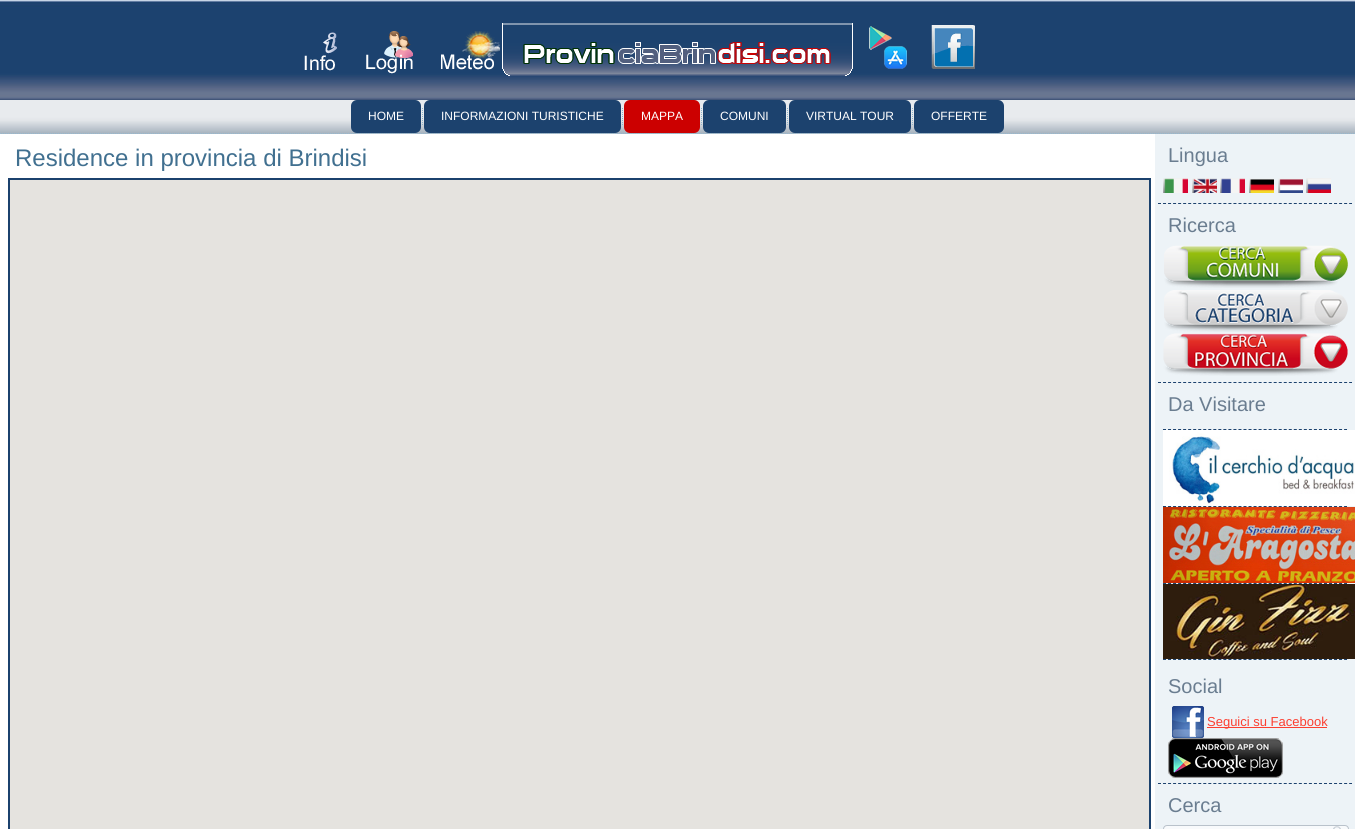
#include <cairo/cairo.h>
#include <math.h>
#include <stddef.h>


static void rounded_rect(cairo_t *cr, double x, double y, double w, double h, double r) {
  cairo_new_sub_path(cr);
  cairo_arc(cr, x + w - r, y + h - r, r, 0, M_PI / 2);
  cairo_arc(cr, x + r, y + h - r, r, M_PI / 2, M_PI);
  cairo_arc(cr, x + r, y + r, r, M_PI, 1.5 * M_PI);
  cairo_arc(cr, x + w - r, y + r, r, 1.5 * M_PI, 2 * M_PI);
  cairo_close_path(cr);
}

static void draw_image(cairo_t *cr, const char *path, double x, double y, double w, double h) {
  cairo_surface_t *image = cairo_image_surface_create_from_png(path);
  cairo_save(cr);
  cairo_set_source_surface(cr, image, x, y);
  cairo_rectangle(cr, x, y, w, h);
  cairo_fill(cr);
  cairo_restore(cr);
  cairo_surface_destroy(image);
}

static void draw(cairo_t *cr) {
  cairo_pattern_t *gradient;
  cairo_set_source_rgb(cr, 1, 1, 1);
  cairo_paint(cr);
  draw_image(cr, "images/1.png", 0, 0, 1355, 100);
  draw_image(cr, "images/2.png", 304, 32, 33, 39);
  draw_image(cr, "images/3.png", 366, 31, 47, 43);
  draw_image(cr, "images/4.png", 441, 31, 59, 39);
  draw_image(cr, "images/5.png", 502, 23, 351, 53);
  draw_image(cr, "images/6.png", 869, 26, 38, 43);
  draw_image(cr, "images/7.png", 931, 25, 44, 44);
  gradient = cairo_pattern_create_linear(678, 100, 678, 134);
  cairo_pattern_add_color_stop_rgba(gradient, 0, 232 / 255.0, 235 / 255.0, 238 / 255.0, 1);
  cairo_pattern_add_color_stop_rgba(gradient, 0.5, 232 / 255.0, 235 / 255.0, 238 / 255.0, 1);
  cairo_pattern_add_color_stop_rgba(gradient, 0.6, 226 / 255.0, 229 / 255.0, 233 / 255.0, 1);
  cairo_pattern_add_color_stop_rgba(gradient, 1, 164 / 255.0, 176 / 255.0, 188 / 255.0, 1);
  cairo_set_source(cr, gradient);
  cairo_pattern_destroy(gradient);
  cairo_rectangle(cr, 0, 100, 1355, 34);
  cairo_fill(cr);
  cairo_new_path(cr);
  cairo_move_to(cr, 0, 133.5);
  cairo_line_to(cr, 1355, 133.5);
  cairo_set_source_rgb(cr, 153 / 255.0, 187 / 255.0, 209 / 255.0);
  cairo_set_line_width(cr, 1);
  cairo_set_dash(cr, (double[]){1, 1}, 2, 0);
  cairo_stroke(cr);
  cairo_set_source_rgb(cr, 28 / 255.0, 66 / 255.0, 110 / 255.0);
  rounded_rect(cr, 351, 100, 70, 33, 6);
  cairo_fill(cr);
  draw_image(cr, "images/8.png", 422, 108, 1, 17);
  rounded_rect(cr, 424, 100, 197, 33, 6);
  cairo_fill(cr);
  draw_image(cr, "images/8.png", 622, 108, 1, 17);
  cairo_set_source_rgb(cr, 204 / 255.0, 0, 0);
  rounded_rect(cr, 624, 100, 76, 33, 6);
  cairo_fill(cr);
  draw_image(cr, "images/8.png", 701, 108, 1, 17);
  cairo_set_source_rgb(cr, 28 / 255.0, 66 / 255.0, 110 / 255.0);
  rounded_rect(cr, 703, 100, 83, 33, 6);
  cairo_fill(cr);
  draw_image(cr, "images/8.png", 787, 108, 1, 17);
  rounded_rect(cr, 789, 100, 122, 33, 6);
  cairo_fill(cr);
  draw_image(cr, "images/8.png", 912, 108, 1, 17);
  rounded_rect(cr, 914, 100, 90, 33, 6);
  cairo_fill(cr);
  cairo_rectangle(cr, 9, 179, 1141, 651);
  cairo_set_source_rgb(cr, 27 / 255.0, 65 / 255.0, 109 / 255.0);
  cairo_set_line_width(cr, 2);
  cairo_set_dash(cr, NULL, 0, 0);
  cairo_stroke(cr);
  cairo_set_source_rgb(cr, 229 / 255.0, 227 / 255.0, 223 / 255.0);
  cairo_rectangle(cr, 10, 180, 1139, 649);
  cairo_fill(cr);
  cairo_set_source_rgb(cr, 237 / 255.0, 243 / 255.0, 247 / 255.0);
  cairo_rectangle(cr, 1155, 134, 200, 695);
  cairo_fill(cr);
  cairo_new_path(cr);
  cairo_move_to(cr, 1158, 203.5);
  cairo_line_to(cr, 1352, 203.5);
  cairo_set_source_rgb(cr, 28 / 255.0, 66 / 255.0, 110 / 255.0);
  cairo_set_line_width(cr, 1);
  cairo_set_dash(cr, (double[]){3, 2.03}, 2, 0);
  cairo_stroke(cr);
  draw_image(cr, "images/9.png", 1163, 178, 25, 15);
  draw_image(cr, "images/10.png", 1192, 178, 25, 15);
  draw_image(cr, "images/11.png", 1220, 178, 25, 15);
  draw_image(cr, "images/12.png", 1249, 178, 25, 15);
  draw_image(cr, "images/13.png", 1278, 178, 25, 15);
  draw_image(cr, "images/14.png", 1306, 178, 25, 15);
  cairo_new_path(cr);
  cairo_move_to(cr, 1158, 382.5);
  cairo_line_to(cr, 1352, 382.5);
  cairo_stroke(cr);
  draw_image(cr, "images/15.png", 1164, 245, 184, 43);
  draw_image(cr, "images/16.png", 1164, 290, 184, 42);
  draw_image(cr, "images/17.png", 1163, 333, 185, 43);
  cairo_new_path(cr);
  cairo_move_to(cr, 1163, 429.5);
  cairo_line_to(cr, 1347, 429.5);
  cairo_stroke(cr);
  cairo_new_path(cr);
  cairo_move_to(cr, 1163, 506.5);
  cairo_line_to(cr, 1347, 506.5);
  cairo_stroke(cr);
  draw_image(cr, "images/18.png", 1163, 430, 192, 76);
  cairo_new_path(cr);
  cairo_move_to(cr, 1163, 583.5);
  cairo_line_to(cr, 1347, 583.5);
  cairo_stroke(cr);
  draw_image(cr, "images/19.png", 1163, 507, 192, 76);
  cairo_new_path(cr);
  cairo_move_to(cr, 1163, 659.5);
  cairo_line_to(cr, 1347, 659.5);
  cairo_stroke(cr);
  draw_image(cr, "images/20.png", 1163, 584, 192, 75);
  cairo_new_path(cr);
  cairo_move_to(cr, 1158, 783.5);
  cairo_line_to(cr, 1352, 783.5);
  cairo_stroke(cr);
  draw_image(cr, "images/21.png", 1172, 706, 32, 32);
  cairo_set_source_rgb(cr, 252 / 255.0, 63 / 255.0, 49 / 255.0);
  cairo_rectangle(cr, 1207, 727, 120, 1);
  cairo_fill(cr);
  draw_image(cr, "images/22.png", 1168, 738, 115, 40);
  cairo_set_source_rgb(cr, 248 / 255.0, 250 / 255.0, 252 / 255.0);
  rounded_rect(cr, 1163.5, 825.5, 185, 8, 3.5);
  cairo_fill_preserve(cr);
  cairo_set_source_rgb(cr, 185 / 255.0, 194 / 255.0, 203 / 255.0);
  cairo_set_dash(cr, NULL, 0, 0);
  cairo_stroke(cr);
  draw_image(cr, "images/23.png", 1333, 826, 8, 3);
  cairo_select_font_face(cr, "Liberation Sans", CAIRO_FONT_SLANT_NORMAL, CAIRO_FONT_WEIGHT_NORMAL);
  cairo_set_font_size(cr, 12);
  cairo_set_source_rgb(cr, 1, 1, 1);
  cairo_move_to(cr, 368, 120);
  cairo_show_text(cr, "HOME");
  cairo_move_to(cr, 441, 120);
  cairo_show_text(cr, "INFORMAZIONI TURISTICHE");
  cairo_move_to(cr, 641, 120);
  cairo_show_text(cr, "MAPPA");
  cairo_move_to(cr, 720, 120);
  cairo_show_text(cr, "COMUNI");
  cairo_move_to(cr, 806, 120);
  cairo_show_text(cr, "VIRTUAL TOUR");
  cairo_move_to(cr, 931, 120);
  cairo_show_text(cr, "OFFERTE");
  cairo_set_font_size(cr, 24);
  cairo_set_source_rgb(cr, 65 / 255.0, 112 / 255.0, 144 / 255.0);
  cairo_move_to(cr, 15, 166);
  cairo_show_text(cr, "Residence in provincia di Brindisi");
  cairo_set_font_size(cr, 20);
  cairo_set_source_rgb(cr, 106 / 255.0, 125 / 255.0, 144 / 255.0);
  cairo_move_to(cr, 1168, 162);
  cairo_show_text(cr, "Lingua");
  cairo_move_to(cr, 1168, 232);
  cairo_show_text(cr, "Ricerca");
  cairo_move_to(cr, 1168, 411);
  cairo_show_text(cr, "Da Visitare");
  cairo_move_to(cr, 1168, 693);
  cairo_show_text(cr, "Social");
  cairo_set_font_size(cr, 13);
  cairo_set_source_rgb(cr, 252 / 255.0, 63 / 255.0, 49 / 255.0);
  cairo_move_to(cr, 1207, 726);
  cairo_show_text(cr, "Seguici su Facebook");
  cairo_set_font_size(cr, 20);
  cairo_set_source_rgb(cr, 106 / 255.0, 125 / 255.0, 144 / 255.0);
  cairo_move_to(cr, 1168, 812);
  cairo_show_text(cr, "Cerca");
}

int main(void) {
  cairo_surface_t *surface = cairo_image_surface_create(CAIRO_FORMAT_RGB24, 1355, 829);
  cairo_t *cr = cairo_create(surface);
  cairo_font_options_t *options = cairo_font_options_create();
  cairo_font_options_set_hint_metrics(options, CAIRO_HINT_METRICS_OFF);
  cairo_font_options_set_hint_style(options, CAIRO_HINT_STYLE_NONE);
  cairo_set_font_options(cr, options);
  cairo_set_miter_limit(cr, 4);
  draw(cr);
  cairo_surface_write_to_png(surface, "out.png");
  cairo_font_options_destroy(options);
  cairo_destroy(cr);
  cairo_surface_destroy(surface);
  return 0;
}
